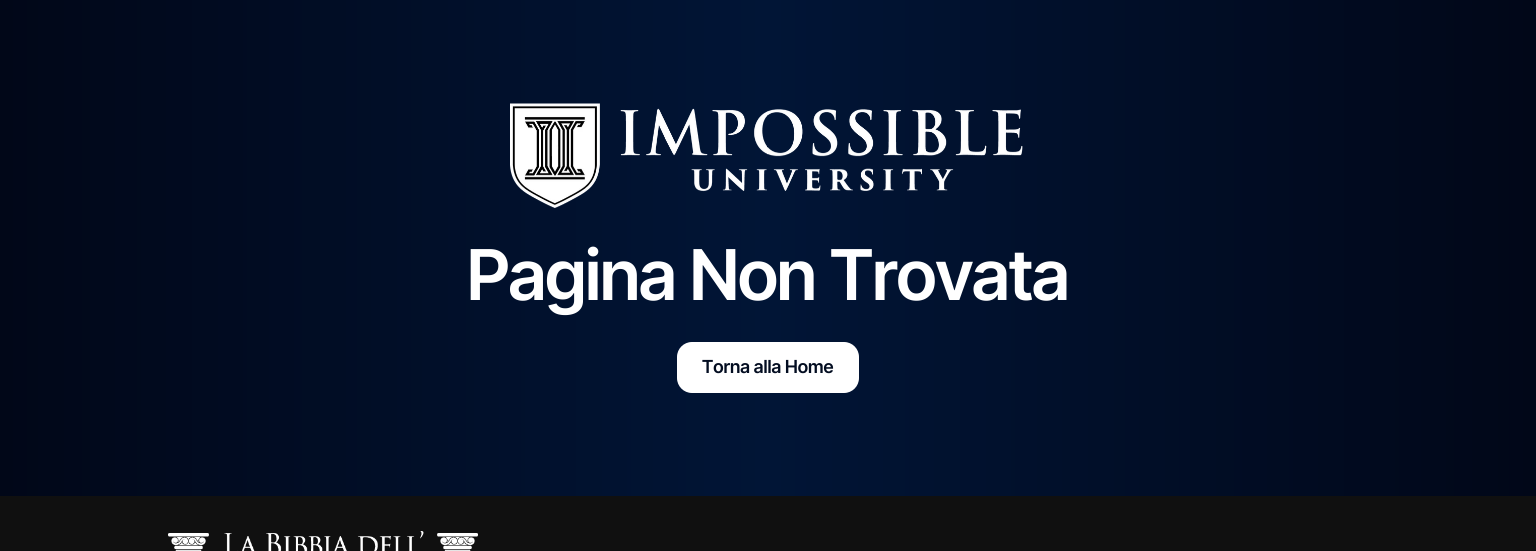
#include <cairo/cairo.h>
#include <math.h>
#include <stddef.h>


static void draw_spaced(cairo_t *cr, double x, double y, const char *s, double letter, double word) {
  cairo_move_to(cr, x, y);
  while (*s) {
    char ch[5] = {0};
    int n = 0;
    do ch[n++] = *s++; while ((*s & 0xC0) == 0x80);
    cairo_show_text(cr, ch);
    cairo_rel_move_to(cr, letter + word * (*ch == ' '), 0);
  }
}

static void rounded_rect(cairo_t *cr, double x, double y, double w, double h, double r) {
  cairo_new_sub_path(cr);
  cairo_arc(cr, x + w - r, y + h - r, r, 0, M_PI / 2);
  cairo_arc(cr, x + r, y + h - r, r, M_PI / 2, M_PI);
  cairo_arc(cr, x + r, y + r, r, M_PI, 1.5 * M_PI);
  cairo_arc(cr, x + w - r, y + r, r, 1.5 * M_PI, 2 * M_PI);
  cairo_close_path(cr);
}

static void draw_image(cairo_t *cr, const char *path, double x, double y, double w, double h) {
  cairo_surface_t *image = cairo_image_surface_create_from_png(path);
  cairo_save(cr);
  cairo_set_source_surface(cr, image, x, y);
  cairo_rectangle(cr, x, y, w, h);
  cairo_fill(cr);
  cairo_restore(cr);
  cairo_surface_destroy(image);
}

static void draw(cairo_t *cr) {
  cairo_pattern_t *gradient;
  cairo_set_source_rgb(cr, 1, 1, 1);
  cairo_paint(cr);
  gradient = cairo_pattern_create_linear(0, 248, 1536, 248);
  cairo_pattern_add_color_stop_rgba(gradient, 0, 3 / 255.0, 13 / 255.0, 33 / 255.0, 1);
  cairo_pattern_add_color_stop_rgba(gradient, 0, 1 / 255.0, 7 / 255.0, 24 / 255.0, 1);
  cairo_pattern_add_color_stop_rgba(gradient, 0.5, 1 / 255.0, 21 / 255.0, 54 / 255.0, 1);
  cairo_pattern_add_color_stop_rgba(gradient, 1, 1 / 255.0, 7 / 255.0, 24 / 255.0, 1);
  cairo_set_source(cr, gradient);
  cairo_pattern_destroy(gradient);
  cairo_rectangle(cr, 0, 0, 1536, 496);
  cairo_fill(cr);
  draw_image(cr, "images/1.png", 510, 103, 513, 105);
  cairo_set_source_rgb(cr, 1, 1, 1);
  rounded_rect(cr, 677, 342, 182, 51, 15);
  cairo_fill(cr);
  cairo_set_source_rgb(cr, 16 / 255.0, 16 / 255.0, 16 / 255.0);
  cairo_rectangle(cr, 0, 496, 1536, 55);
  cairo_fill(cr);
  draw_image(cr, "images/2.png", 168, 531, 310, 20);
  cairo_select_font_face(cr, "Inter Tight SemiBold", CAIRO_FONT_SLANT_NORMAL, CAIRO_FONT_WEIGHT_NORMAL);
  cairo_set_font_size(cr, 70);
  cairo_set_source_rgb(cr, 1, 1, 1);
  draw_spaced(cr, 467, 300, "Pagina Non Trovata", -1, 0);
  cairo_set_font_size(cr, 18);
  cairo_set_source_rgb(cr, 3 / 255.0, 13 / 255.0, 33 / 255.0);
  cairo_move_to(cr, 702, 373);
  cairo_show_text(cr, "Torna alla Home");
}

int main(void) {
  cairo_surface_t *surface = cairo_image_surface_create(CAIRO_FORMAT_RGB24, 1536, 551);
  cairo_t *cr = cairo_create(surface);
  cairo_font_options_t *options = cairo_font_options_create();
  cairo_font_options_set_hint_metrics(options, CAIRO_HINT_METRICS_OFF);
  cairo_font_options_set_hint_style(options, CAIRO_HINT_STYLE_NONE);
  cairo_set_font_options(cr, options);
  cairo_set_miter_limit(cr, 4);
  draw(cr);
  cairo_surface_write_to_png(surface, "out.png");
  cairo_font_options_destroy(options);
  cairo_destroy(cr);
  cairo_surface_destroy(surface);
  return 0;
}
